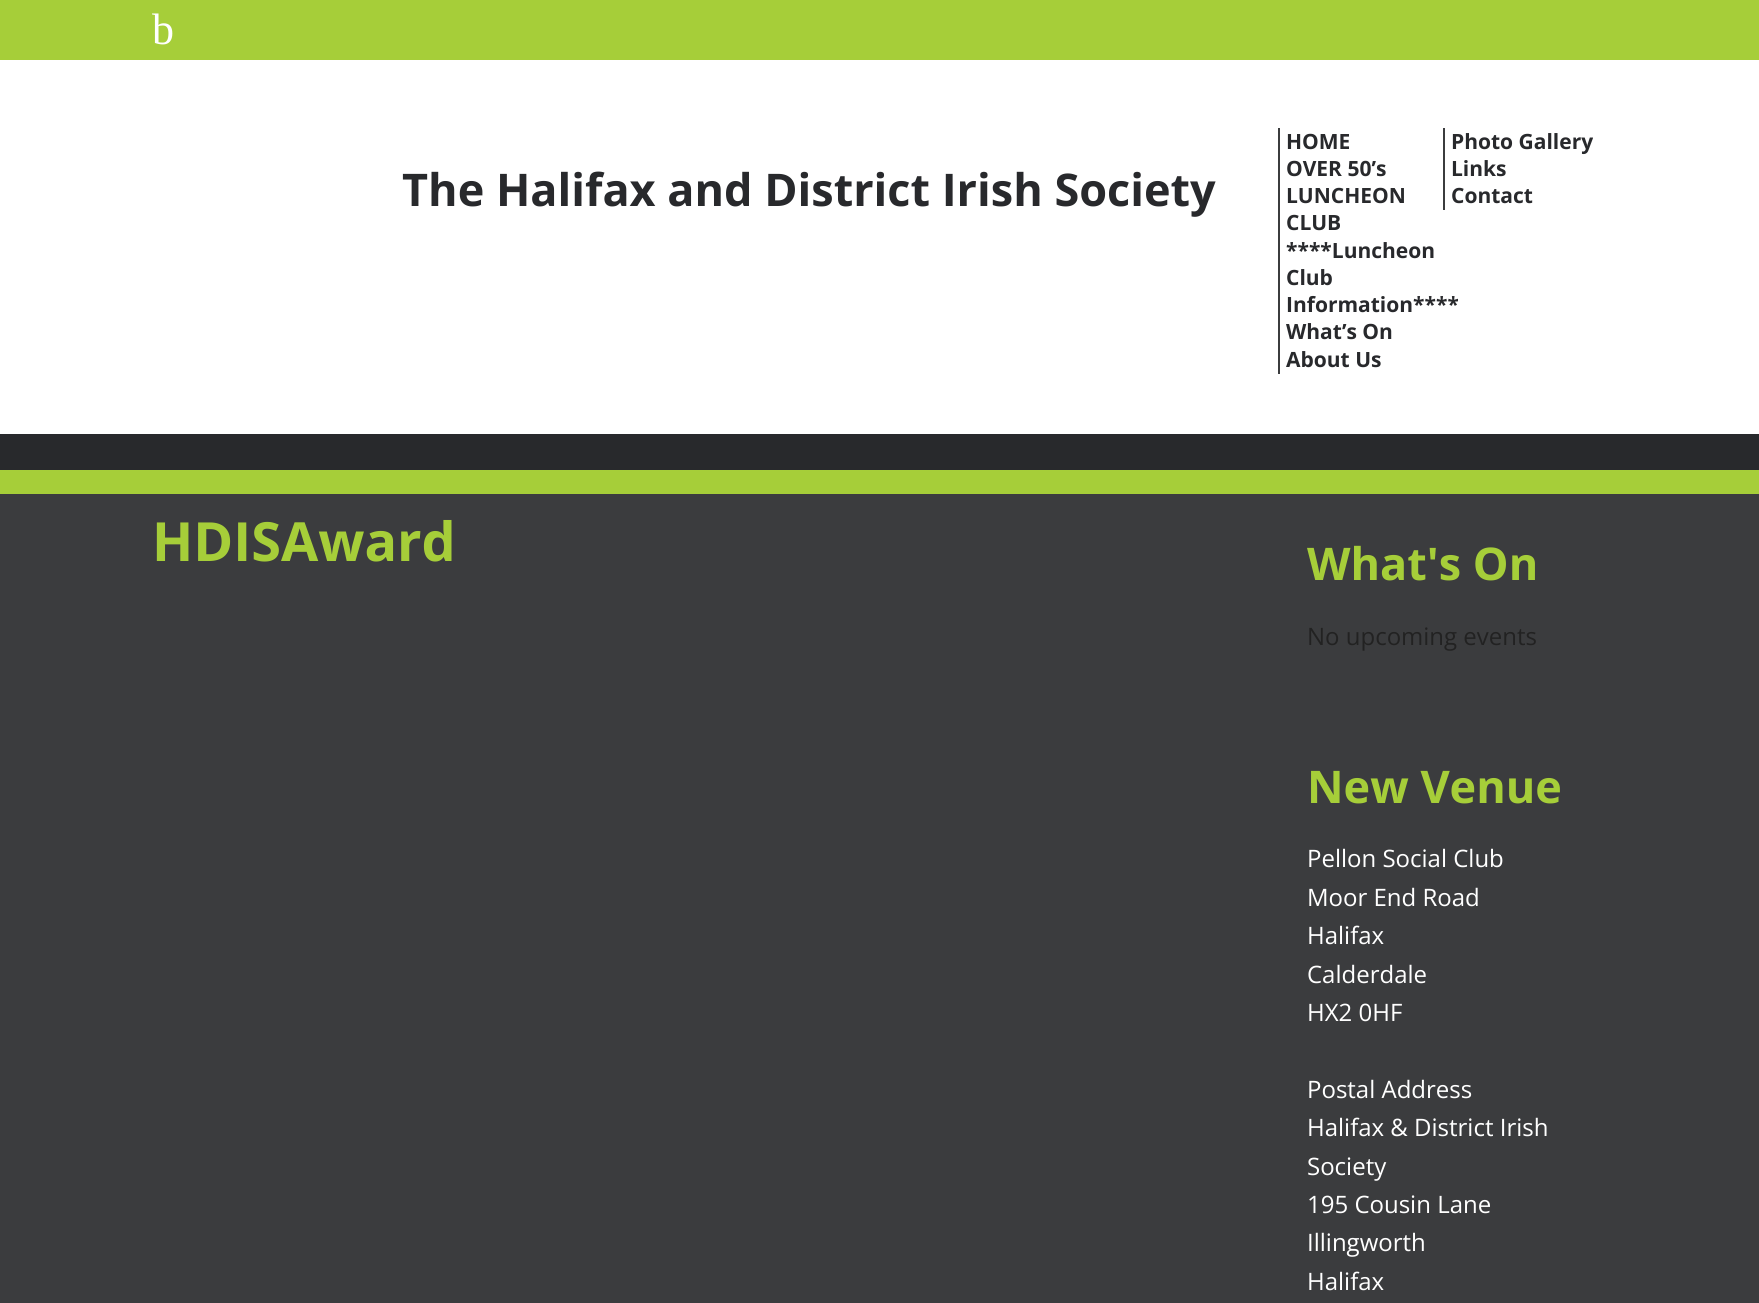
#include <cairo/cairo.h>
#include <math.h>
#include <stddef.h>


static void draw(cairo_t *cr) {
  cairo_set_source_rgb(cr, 1, 1, 1);
  cairo_paint(cr);
  cairo_set_source_rgb(cr, 166 / 255.0, 206 / 255.0, 57 / 255.0);
  cairo_rectangle(cr, 0, 0, 1759, 60);
  cairo_fill(cr);
  cairo_set_source_rgb(cr, 59 / 255.0, 60 / 255.0, 62 / 255.0);
  cairo_rectangle(cr, 1278, 128, 2, 246);
  cairo_fill(cr);
  cairo_rectangle(cr, 1443, 128, 2, 82);
  cairo_fill(cr);
  cairo_set_source_rgb(cr, 40 / 255.0, 41 / 255.0, 44 / 255.0);
  cairo_rectangle(cr, 0, 434, 1759, 36);
  cairo_fill(cr);
  cairo_set_source_rgb(cr, 166 / 255.0, 206 / 255.0, 57 / 255.0);
  cairo_rectangle(cr, 0, 470, 1759, 24);
  cairo_fill(cr);
  cairo_set_source_rgb(cr, 59 / 255.0, 60 / 255.0, 62 / 255.0);
  cairo_rectangle(cr, 0, 494, 1759, 809);
  cairo_fill(cr);
  cairo_select_font_face(cr, "Liberation Serif", CAIRO_FONT_SLANT_NORMAL, CAIRO_FONT_WEIGHT_NORMAL);
  cairo_set_font_size(cr, 44);
  cairo_set_source_rgb(cr, 1, 1, 1);
  cairo_move_to(cr, 152, 44);
  cairo_show_text(cr, "b");
  cairo_select_font_face(cr, "Open Sans", CAIRO_FONT_SLANT_NORMAL, CAIRO_FONT_WEIGHT_BOLD);
  cairo_set_font_size(cr, 45);
  cairo_set_source_rgb(cr, 40 / 255.0, 41 / 255.0, 44 / 255.0);
  cairo_move_to(cr, 402, 206);
  cairo_show_text(cr, "The Halifax and District Irish Society");
  cairo_set_font_size(cr, 21);
  cairo_move_to(cr, 1286, 149);
  cairo_show_text(cr, "HOME");
  cairo_move_to(cr, 1286, 176);
  cairo_show_text(cr, "OVER 50’s");
  cairo_move_to(cr, 1286, 203);
  cairo_show_text(cr, "LUNCHEON");
  cairo_move_to(cr, 1286, 230);
  cairo_show_text(cr, "CLUB");
  cairo_move_to(cr, 1286, 258);
  cairo_show_text(cr, "****Luncheon");
  cairo_move_to(cr, 1286, 285);
  cairo_show_text(cr, "Club");
  cairo_move_to(cr, 1286, 312);
  cairo_show_text(cr, "Information****");
  cairo_move_to(cr, 1286, 339);
  cairo_show_text(cr, "What’s On");
  cairo_move_to(cr, 1286, 367);
  cairo_show_text(cr, "About Us");
  cairo_move_to(cr, 1451, 149);
  cairo_show_text(cr, "Photo Gallery");
  cairo_move_to(cr, 1451, 176);
  cairo_show_text(cr, "Links");
  cairo_move_to(cr, 1451, 203);
  cairo_show_text(cr, "Contact");
  cairo_set_font_size(cr, 54);
  cairo_set_source_rgb(cr, 166 / 255.0, 206 / 255.0, 57 / 255.0);
  cairo_move_to(cr, 152, 561);
  cairo_show_text(cr, "HDISAward");
  cairo_set_font_size(cr, 45);
  cairo_move_to(cr, 1307, 580);
  cairo_show_text(cr, "What's On");
  cairo_select_font_face(cr, "Open Sans", CAIRO_FONT_SLANT_NORMAL, CAIRO_FONT_WEIGHT_NORMAL);
  cairo_set_font_size(cr, 24);
  cairo_set_source_rgb(cr, 34 / 255.0, 34 / 255.0, 34 / 255.0);
  cairo_move_to(cr, 1307, 645);
  cairo_show_text(cr, "No upcoming events");
  cairo_select_font_face(cr, "Open Sans", CAIRO_FONT_SLANT_NORMAL, CAIRO_FONT_WEIGHT_BOLD);
  cairo_set_font_size(cr, 45);
  cairo_set_source_rgb(cr, 166 / 255.0, 206 / 255.0, 57 / 255.0);
  cairo_move_to(cr, 1307, 803);
  cairo_show_text(cr, "New Venue");
  cairo_select_font_face(cr, "Open Sans", CAIRO_FONT_SLANT_NORMAL, CAIRO_FONT_WEIGHT_NORMAL);
  cairo_set_font_size(cr, 24);
  cairo_set_source_rgb(cr, 1, 1, 1);
  cairo_move_to(cr, 1307, 867);
  cairo_show_text(cr, "Pellon Social Club");
  cairo_move_to(cr, 1307, 906);
  cairo_show_text(cr, "Moor End Road");
  cairo_move_to(cr, 1307, 944);
  cairo_show_text(cr, "Halifax");
  cairo_move_to(cr, 1307, 983);
  cairo_show_text(cr, "Calderdale");
  cairo_move_to(cr, 1307, 1021);
  cairo_show_text(cr, "HX2 0HF");
  cairo_move_to(cr, 1307, 1098);
  cairo_show_text(cr, "Postal Address");
  cairo_move_to(cr, 1307, 1136);
  cairo_show_text(cr, "Halifax & District Irish");
  cairo_move_to(cr, 1307, 1175);
  cairo_show_text(cr, "Society");
  cairo_move_to(cr, 1307, 1213);
  cairo_show_text(cr, "195 Cousin Lane");
  cairo_move_to(cr, 1307, 1251);
  cairo_show_text(cr, "Illingworth");
  cairo_move_to(cr, 1307, 1290);
  cairo_show_text(cr, "Halifax");
}

int main(void) {
  cairo_surface_t *surface = cairo_image_surface_create(CAIRO_FORMAT_RGB24, 1759, 1303);
  cairo_t *cr = cairo_create(surface);
  cairo_font_options_t *options = cairo_font_options_create();
  cairo_font_options_set_hint_metrics(options, CAIRO_HINT_METRICS_OFF);
  cairo_font_options_set_hint_style(options, CAIRO_HINT_STYLE_NONE);
  cairo_set_font_options(cr, options);
  cairo_set_miter_limit(cr, 4);
  draw(cr);
  cairo_surface_write_to_png(surface, "out.png");
  cairo_font_options_destroy(options);
  cairo_destroy(cr);
  cairo_surface_destroy(surface);
  return 0;
}
